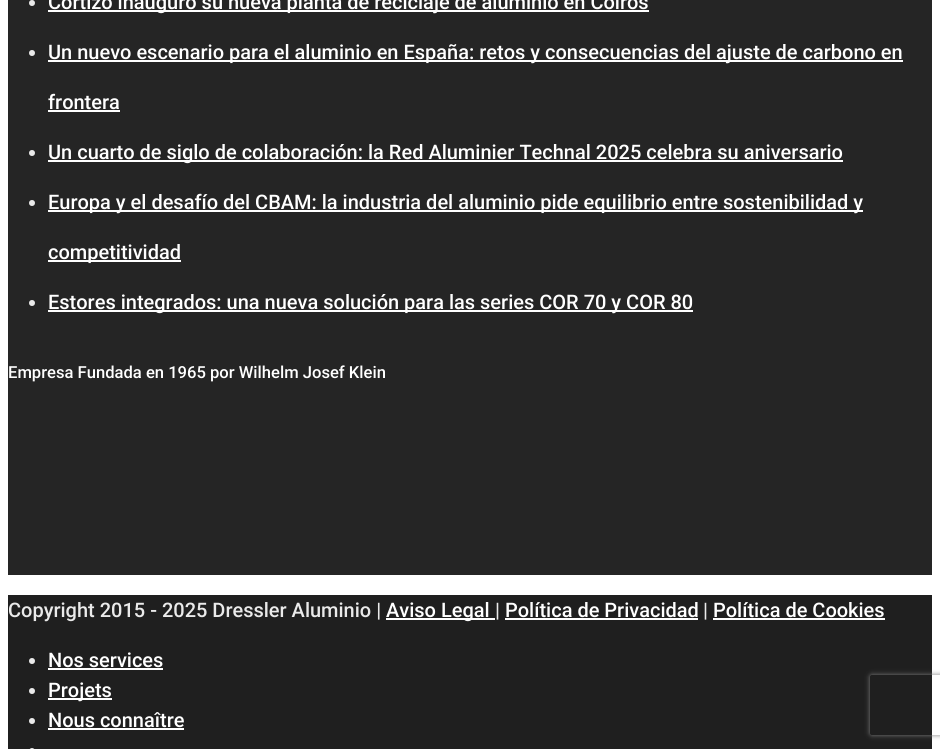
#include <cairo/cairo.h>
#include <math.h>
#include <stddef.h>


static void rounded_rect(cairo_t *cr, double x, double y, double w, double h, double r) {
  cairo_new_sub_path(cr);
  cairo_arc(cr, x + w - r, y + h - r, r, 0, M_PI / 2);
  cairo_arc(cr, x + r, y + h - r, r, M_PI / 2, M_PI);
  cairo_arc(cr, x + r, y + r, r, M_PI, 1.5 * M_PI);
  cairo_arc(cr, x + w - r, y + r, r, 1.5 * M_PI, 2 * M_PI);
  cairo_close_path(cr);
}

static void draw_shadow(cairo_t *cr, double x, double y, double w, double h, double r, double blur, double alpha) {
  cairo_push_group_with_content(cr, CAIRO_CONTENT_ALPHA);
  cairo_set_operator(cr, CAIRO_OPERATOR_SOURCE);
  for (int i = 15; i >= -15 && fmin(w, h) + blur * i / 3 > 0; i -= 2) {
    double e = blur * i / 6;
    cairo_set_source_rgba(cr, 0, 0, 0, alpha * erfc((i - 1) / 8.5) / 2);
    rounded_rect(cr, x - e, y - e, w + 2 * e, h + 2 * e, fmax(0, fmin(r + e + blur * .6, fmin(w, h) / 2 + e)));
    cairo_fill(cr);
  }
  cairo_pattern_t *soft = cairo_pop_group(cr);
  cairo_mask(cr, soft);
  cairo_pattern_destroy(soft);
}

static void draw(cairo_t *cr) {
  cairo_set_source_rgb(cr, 1, 1, 1);
  cairo_paint(cr);
  cairo_set_source_rgb(cr, 37 / 255.0, 37 / 255.0, 37 / 255.0);
  cairo_rectangle(cr, 8, 0, 924, 575);
  cairo_fill(cr);
  cairo_set_source_rgb(cr, 234 / 255.0, 234 / 255.0, 234 / 255.0);
  cairo_arc(cr, 32, 3, 3, 0, 2 * M_PI);
  cairo_fill(cr);
  cairo_set_source_rgb(cr, 1, 1, 1);
  cairo_rectangle(cr, 48, 10, 601, 2);
  cairo_fill(cr);
  cairo_set_source_rgb(cr, 234 / 255.0, 234 / 255.0, 234 / 255.0);
  cairo_arc(cr, 32, 53, 3, 0, 2 * M_PI);
  cairo_fill(cr);
  cairo_set_source_rgb(cr, 1, 1, 1);
  cairo_rectangle(cr, 48, 60, 855, 2);
  cairo_fill(cr);
  cairo_rectangle(cr, 48, 110, 72, 2);
  cairo_fill(cr);
  cairo_set_source_rgb(cr, 234 / 255.0, 234 / 255.0, 234 / 255.0);
  cairo_arc(cr, 32, 153, 3, 0, 2 * M_PI);
  cairo_fill(cr);
  cairo_set_source_rgb(cr, 1, 1, 1);
  cairo_rectangle(cr, 48, 160, 795, 2);
  cairo_fill(cr);
  cairo_set_source_rgb(cr, 234 / 255.0, 234 / 255.0, 234 / 255.0);
  cairo_arc(cr, 32, 203, 3, 0, 2 * M_PI);
  cairo_fill(cr);
  cairo_set_source_rgb(cr, 1, 1, 1);
  cairo_rectangle(cr, 48, 210, 815, 2);
  cairo_fill(cr);
  cairo_rectangle(cr, 48, 260, 133, 2);
  cairo_fill(cr);
  cairo_set_source_rgb(cr, 234 / 255.0, 234 / 255.0, 234 / 255.0);
  cairo_arc(cr, 32, 303, 3, 0, 2 * M_PI);
  cairo_fill(cr);
  cairo_set_source_rgb(cr, 1, 1, 1);
  cairo_rectangle(cr, 48, 310, 645, 2);
  cairo_fill(cr);
  cairo_set_source_rgb(cr, 31 / 255.0, 31 / 255.0, 31 / 255.0);
  cairo_rectangle(cr, 8, 595, 924, 154);
  cairo_fill(cr);
  cairo_set_source_rgb(cr, 1, 1, 1);
  cairo_rectangle(cr, 386, 618, 109, 2);
  cairo_fill(cr);
  cairo_rectangle(cr, 505, 618, 193, 2);
  cairo_fill(cr);
  cairo_rectangle(cr, 713, 618, 172, 2);
  cairo_fill(cr);
  cairo_set_source_rgb(cr, 234 / 255.0, 234 / 255.0, 234 / 255.0);
  cairo_arc(cr, 32, 661, 3, 0, 2 * M_PI);
  cairo_fill(cr);
  cairo_set_source_rgb(cr, 1, 1, 1);
  cairo_rectangle(cr, 48, 668, 115, 2);
  cairo_fill(cr);
  cairo_set_source_rgb(cr, 234 / 255.0, 234 / 255.0, 234 / 255.0);
  cairo_arc(cr, 32, 691, 3, 0, 2 * M_PI);
  cairo_fill(cr);
  cairo_set_source_rgb(cr, 1, 1, 1);
  cairo_rectangle(cr, 48, 698, 64, 2);
  cairo_fill(cr);
  cairo_set_source_rgb(cr, 234 / 255.0, 234 / 255.0, 234 / 255.0);
  cairo_arc(cr, 32, 721, 3, 0, 2 * M_PI);
  cairo_fill(cr);
  cairo_set_source_rgb(cr, 1, 1, 1);
  cairo_rectangle(cr, 48, 728, 136, 2);
  cairo_fill(cr);
  cairo_set_source_rgb(cr, 234 / 255.0, 234 / 255.0, 234 / 255.0);
  rounded_rect(cr, 29, 748, 6, 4, 3);
  cairo_fill(cr);
  cairo_save(cr);
  cairo_set_fill_rule(cr, CAIRO_FILL_RULE_EVEN_ODD);
  cairo_new_path(cr);
  cairo_move_to(cr, 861, 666);
  cairo_line_to(cr, 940, 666);
  cairo_line_to(cr, 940, 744);
  cairo_line_to(cr, 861, 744);
  cairo_close_path(cr);
  cairo_move_to(cr, 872, 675);
  cairo_line_to(cr, 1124, 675);
  cairo_curve_to(cr, 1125, 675, 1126, 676, 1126, 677);
  cairo_line_to(cr, 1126, 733);
  cairo_curve_to(cr, 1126, 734, 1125, 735, 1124, 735);
  cairo_line_to(cr, 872, 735);
  cairo_curve_to(cr, 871, 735, 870, 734, 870, 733);
  cairo_line_to(cr, 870, 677);
  cairo_curve_to(cr, 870, 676, 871, 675, 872, 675);
  cairo_close_path(cr);
  cairo_clip(cr);
  cairo_set_source_rgb(cr, 128 / 255.0, 128 / 255.0, 128 / 255.0);
  draw_shadow(cr, 870, 675, 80, 60, 2, 2.5, 1);
  cairo_restore(cr);
  cairo_select_font_face(cr, "Roboto Medium", CAIRO_FONT_SLANT_NORMAL, CAIRO_FONT_WEIGHT_NORMAL);
  cairo_set_font_size(cr, 20);
  cairo_set_source_rgb(cr, 1, 1, 1);
  cairo_move_to(cr, 48, 9);
  cairo_show_text(cr, "Cortizo inauguró su nueva planta de reciclaje de aluminio en Coirós");
  cairo_move_to(cr, 48, 59);
  cairo_show_text(cr, "Un nuevo escenario para el aluminio en España: retos y consecuencias del ajuste de carbono en");
  cairo_move_to(cr, 48, 109);
  cairo_show_text(cr, "frontera");
  cairo_move_to(cr, 48, 159);
  cairo_show_text(cr, "Un cuarto de siglo de colaboración: la Red Aluminier Technal 2025 celebra su aniversario");
  cairo_move_to(cr, 48, 209);
  cairo_show_text(cr, "Europa y el desafío del CBAM: la industria del aluminio pide equilibrio entre sostenibilidad y");
  cairo_move_to(cr, 48, 259);
  cairo_show_text(cr, "competitividad");
  cairo_move_to(cr, 48, 309);
  cairo_show_text(cr, "Estores integrados: una nueva solución para las series COR 70 y COR 80");
  cairo_set_font_size(cr, 16.6);
  cairo_move_to(cr, 8, 378);
  cairo_show_text(cr, "Empresa Fundada en 1965 por Wilhelm Josef Klein");
  cairo_set_font_size(cr, 20);
  cairo_set_source_rgb(cr, 234 / 255.0, 234 / 255.0, 234 / 255.0);
  cairo_move_to(cr, 8, 617);
  cairo_show_text(cr, "Copyright 2015 - 2025 Dressler Aluminio |");
  cairo_set_source_rgb(cr, 1, 1, 1);
  cairo_move_to(cr, 386, 617);
  cairo_show_text(cr, "Aviso Legal");
  cairo_set_source_rgb(cr, 234 / 255.0, 234 / 255.0, 234 / 255.0);
  cairo_move_to(cr, 495, 617);
  cairo_show_text(cr, "|");
  cairo_set_source_rgb(cr, 1, 1, 1);
  cairo_move_to(cr, 505, 617);
  cairo_show_text(cr, "Política de Privacidad");
  cairo_set_source_rgb(cr, 234 / 255.0, 234 / 255.0, 234 / 255.0);
  cairo_move_to(cr, 703, 617);
  cairo_show_text(cr, "|");
  cairo_set_source_rgb(cr, 1, 1, 1);
  cairo_move_to(cr, 713, 617);
  cairo_show_text(cr, "Política de Cookies");
  cairo_move_to(cr, 48, 667);
  cairo_show_text(cr, "Nos services");
  cairo_move_to(cr, 48, 697);
  cairo_show_text(cr, "Projets");
  cairo_move_to(cr, 48, 727);
  cairo_show_text(cr, "Nous connaître");
}

int main(void) {
  cairo_surface_t *surface = cairo_image_surface_create(CAIRO_FORMAT_RGB24, 940, 749);
  cairo_t *cr = cairo_create(surface);
  cairo_font_options_t *options = cairo_font_options_create();
  cairo_font_options_set_hint_metrics(options, CAIRO_HINT_METRICS_OFF);
  cairo_font_options_set_hint_style(options, CAIRO_HINT_STYLE_NONE);
  cairo_set_font_options(cr, options);
  cairo_set_miter_limit(cr, 4);
  draw(cr);
  cairo_surface_write_to_png(surface, "out.png");
  cairo_font_options_destroy(options);
  cairo_destroy(cr);
  cairo_surface_destroy(surface);
  return 0;
}
